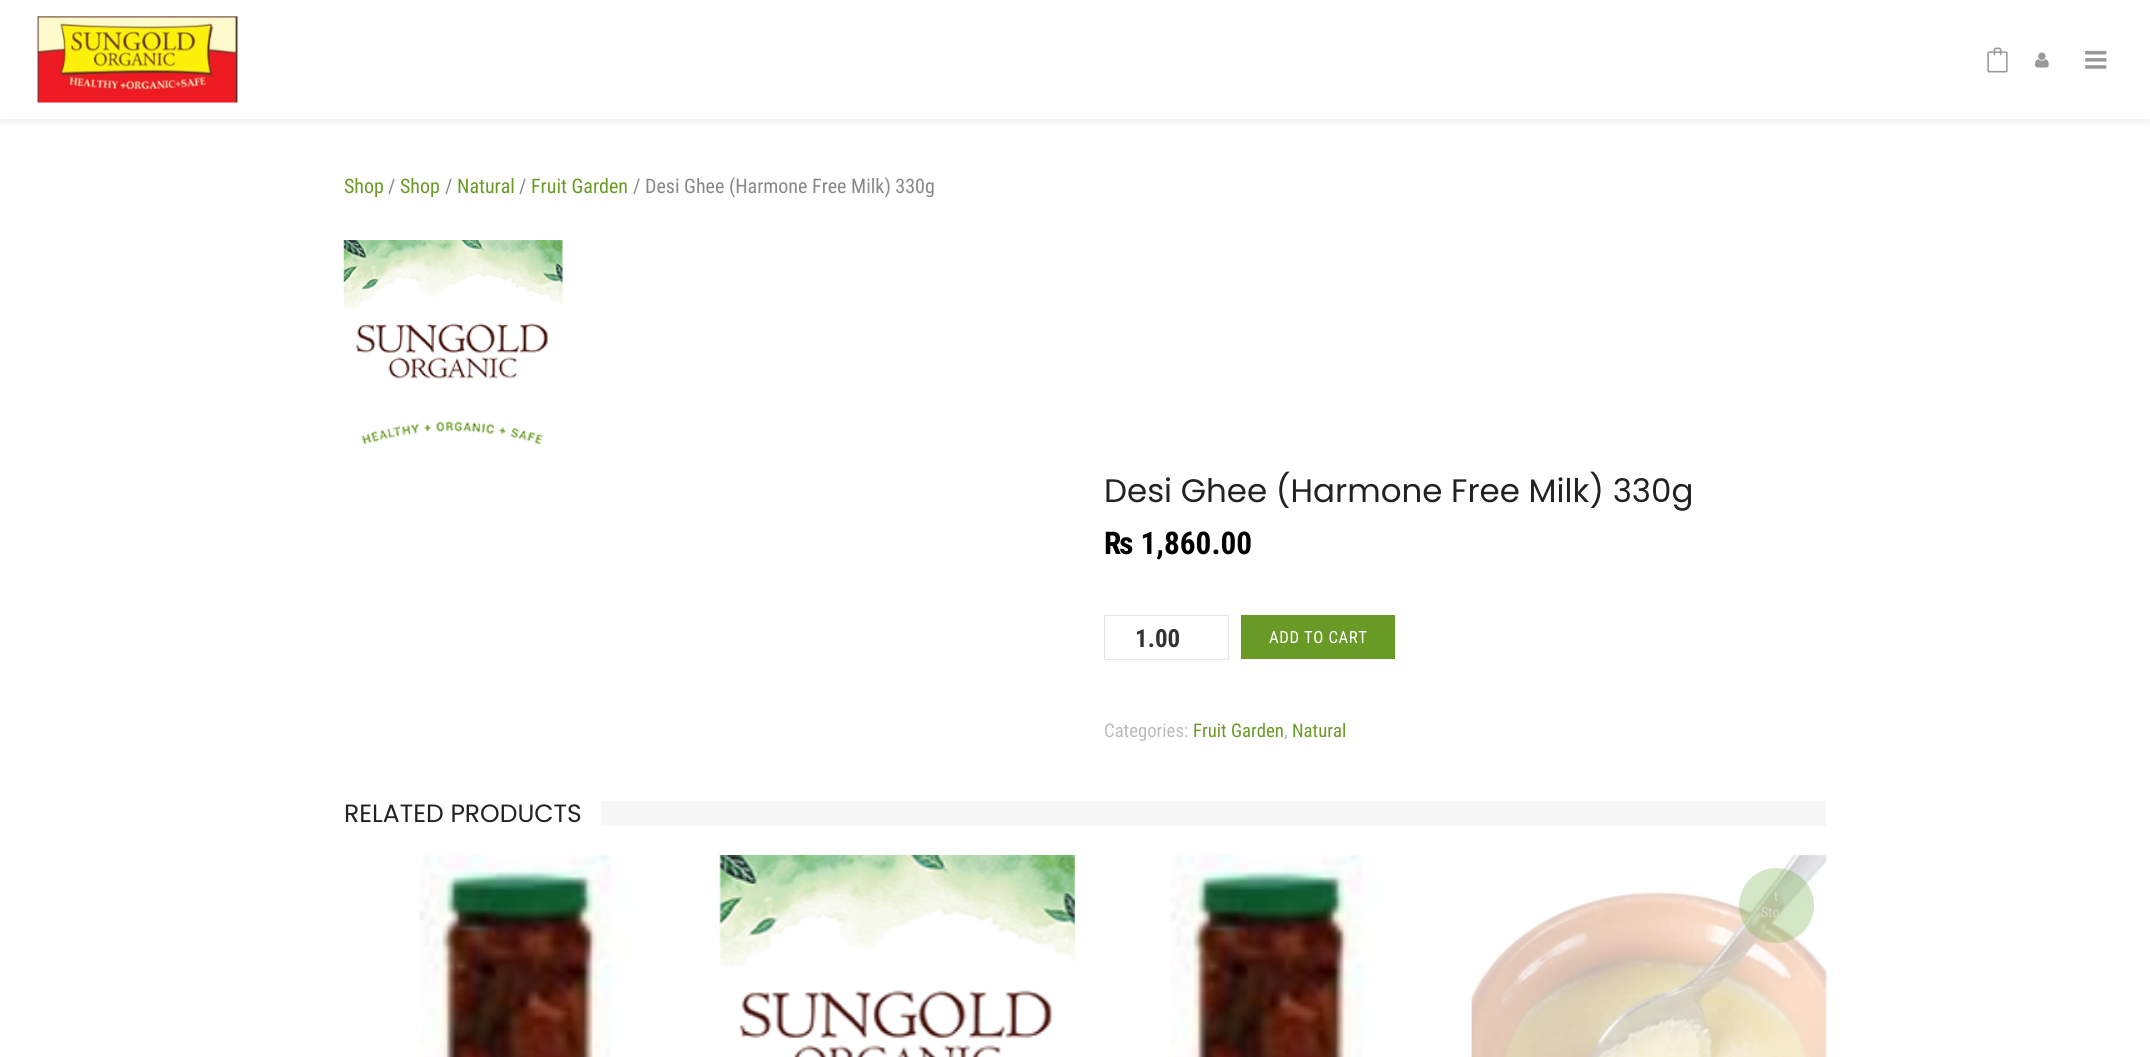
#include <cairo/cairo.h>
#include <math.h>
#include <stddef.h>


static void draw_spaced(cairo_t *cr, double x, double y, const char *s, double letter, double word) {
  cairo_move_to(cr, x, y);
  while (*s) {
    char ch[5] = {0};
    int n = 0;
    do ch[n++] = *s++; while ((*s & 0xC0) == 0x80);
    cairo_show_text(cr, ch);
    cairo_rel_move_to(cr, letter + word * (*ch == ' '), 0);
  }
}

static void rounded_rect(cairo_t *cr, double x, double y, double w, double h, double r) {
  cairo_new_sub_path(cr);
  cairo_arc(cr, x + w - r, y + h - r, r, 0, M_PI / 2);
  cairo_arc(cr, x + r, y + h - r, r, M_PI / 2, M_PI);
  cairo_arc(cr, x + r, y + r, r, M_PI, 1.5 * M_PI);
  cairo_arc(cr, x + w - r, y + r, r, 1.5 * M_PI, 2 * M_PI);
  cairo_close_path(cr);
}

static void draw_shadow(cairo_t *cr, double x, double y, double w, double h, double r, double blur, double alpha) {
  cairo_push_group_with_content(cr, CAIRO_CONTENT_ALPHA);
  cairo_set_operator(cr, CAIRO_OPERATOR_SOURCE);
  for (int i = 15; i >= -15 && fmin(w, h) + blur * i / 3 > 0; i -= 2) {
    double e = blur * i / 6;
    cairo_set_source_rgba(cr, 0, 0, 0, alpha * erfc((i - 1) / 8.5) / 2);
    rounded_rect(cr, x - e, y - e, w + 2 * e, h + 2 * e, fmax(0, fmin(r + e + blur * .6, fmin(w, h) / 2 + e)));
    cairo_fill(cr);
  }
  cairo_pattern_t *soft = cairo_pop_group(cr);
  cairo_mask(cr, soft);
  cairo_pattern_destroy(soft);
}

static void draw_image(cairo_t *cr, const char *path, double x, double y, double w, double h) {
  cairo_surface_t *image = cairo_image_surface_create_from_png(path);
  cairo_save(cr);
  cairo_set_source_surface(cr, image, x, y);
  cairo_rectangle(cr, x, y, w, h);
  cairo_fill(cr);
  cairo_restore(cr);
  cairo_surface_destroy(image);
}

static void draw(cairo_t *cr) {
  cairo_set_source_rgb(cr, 1, 1, 1);
  cairo_paint(cr);
  cairo_set_source_rgb(cr, 0, 0, 0);
  draw_shadow(cr, 0, 4, 2150, 119, 0, 2, 0.05);
  cairo_set_source_rgb(cr, 1, 1, 1);
  cairo_rectangle(cr, 0, 2, 2150, 117);
  cairo_fill(cr);
  draw_image(cr, "images/1.png", 37, 16, 201, 87);
  draw_image(cr, "images/2.png", 1987, 47, 21, 26);
  draw_image(cr, "images/3.png", 2035, 52, 14, 16);
  draw_image(cr, "images/4.png", 2085, 50, 22, 19);
  draw_image(cr, "images/5.png", 343, 240, 220, 205);
  cairo_rectangle(cr, 1104.5, 615.5, 124, 44);
  cairo_set_source_rgb(cr, 226 / 255.0, 226 / 255.0, 226 / 255.0);
  cairo_set_line_width(cr, 1);
  cairo_stroke(cr);
  cairo_set_source_rgb(cr, 105 / 255.0, 154 / 255.0, 38 / 255.0);
  cairo_rectangle(cr, 1241, 615, 154, 44);
  cairo_fill(cr);
  cairo_set_source_rgb(cr, 247 / 255.0, 247 / 255.0, 247 / 255.0);
  cairo_rectangle(cr, 601, 801, 1225, 25);
  cairo_fill(cr);
  draw_image(cr, "images/6.png", 419, 855, 212, 202);
  draw_image(cr, "images/7.png", 719, 855, 357, 202);
  draw_image(cr, "images/8.png", 1170, 855, 213, 202);
  draw_image(cr, "images/9.png", 1471, 855, 356, 202);
  cairo_set_source_rgba(cr, 109 / 255.0, 171 / 255.0, 60 / 255.0, 0.3);
  cairo_arc(cr, 1776.5, 905.5, 37.5, 0, 2 * M_PI);
  cairo_fill(cr);
  cairo_select_font_face(cr, "Roboto Condensed", CAIRO_FONT_SLANT_NORMAL, CAIRO_FONT_WEIGHT_NORMAL);
  cairo_set_font_size(cr, 20);
  cairo_set_source_rgb(cr, 105 / 255.0, 154 / 255.0, 38 / 255.0);
  cairo_move_to(cr, 344, 193);
  cairo_show_text(cr, "Shop");
  cairo_set_source_rgb(cr, 136 / 255.0, 136 / 255.0, 136 / 255.0);
  cairo_move_to(cr, 388, 193);
  cairo_show_text(cr, "/");
  cairo_set_source_rgb(cr, 105 / 255.0, 154 / 255.0, 38 / 255.0);
  cairo_move_to(cr, 400, 193);
  cairo_show_text(cr, "Shop");
  cairo_set_source_rgb(cr, 136 / 255.0, 136 / 255.0, 136 / 255.0);
  cairo_move_to(cr, 445, 193);
  cairo_show_text(cr, "/");
  cairo_set_source_rgb(cr, 105 / 255.0, 154 / 255.0, 38 / 255.0);
  cairo_move_to(cr, 457, 193);
  cairo_show_text(cr, "Natural");
  cairo_set_source_rgb(cr, 136 / 255.0, 136 / 255.0, 136 / 255.0);
  cairo_move_to(cr, 519, 193);
  cairo_show_text(cr, "/");
  cairo_set_source_rgb(cr, 105 / 255.0, 154 / 255.0, 38 / 255.0);
  cairo_move_to(cr, 531, 193);
  cairo_show_text(cr, "Fruit Garden");
  cairo_set_source_rgb(cr, 136 / 255.0, 136 / 255.0, 136 / 255.0);
  cairo_move_to(cr, 633, 193);
  cairo_show_text(cr, "/ Desi Ghee (Harmone Free Milk) 330g");
  cairo_select_font_face(cr, "Poppins", CAIRO_FONT_SLANT_NORMAL, CAIRO_FONT_WEIGHT_NORMAL);
  cairo_set_font_size(cr, 32.5);
  cairo_set_source_rgb(cr, 34 / 255.0, 34 / 255.0, 34 / 255.0);
  cairo_move_to(cr, 1104, 502);
  cairo_show_text(cr, "Desi Ghee (Harmone Free Milk) 330g");
  cairo_select_font_face(cr, "Roboto Condensed", CAIRO_FONT_SLANT_NORMAL, CAIRO_FONT_WEIGHT_BOLD);
  cairo_set_font_size(cr, 31.25);
  cairo_set_source_rgb(cr, 0, 0, 0);
  cairo_move_to(cr, 1104, 554);
  cairo_show_text(cr, "₨ 1,860.00");
  cairo_set_font_size(cr, 25);
  cairo_set_source_rgb(cr, 51 / 255.0, 51 / 255.0, 51 / 255.0);
  cairo_move_to(cr, 1135, 647);
  cairo_show_text(cr, "1.00");
  cairo_select_font_face(cr, "Roboto Condensed", CAIRO_FONT_SLANT_NORMAL, CAIRO_FONT_WEIGHT_NORMAL);
  cairo_set_font_size(cr, 16.75);
  cairo_set_source_rgb(cr, 1, 1, 1);
  draw_spaced(cr, 1269, 643, "ADD TO CART", 0.6, 0);
  cairo_set_font_size(cr, 18.75);
  cairo_set_source_rgb(cr, 187 / 255.0, 187 / 255.0, 187 / 255.0);
  cairo_move_to(cr, 1104, 737);
  cairo_show_text(cr, "Categories:");
  cairo_set_source_rgb(cr, 105 / 255.0, 154 / 255.0, 38 / 255.0);
  cairo_move_to(cr, 1193, 737);
  cairo_show_text(cr, "Fruit Garden");
  cairo_set_source_rgb(cr, 187 / 255.0, 187 / 255.0, 187 / 255.0);
  cairo_move_to(cr, 1284, 737);
  cairo_show_text(cr, ",");
  cairo_set_source_rgb(cr, 105 / 255.0, 154 / 255.0, 38 / 255.0);
  cairo_move_to(cr, 1292, 737);
  cairo_show_text(cr, "Natural");
  cairo_select_font_face(cr, "Poppins", CAIRO_FONT_SLANT_NORMAL, CAIRO_FONT_WEIGHT_NORMAL);
  cairo_set_font_size(cr, 25);
  cairo_set_source_rgb(cr, 34 / 255.0, 34 / 255.0, 34 / 255.0);
  cairo_move_to(cr, 344, 822);
  cairo_show_text(cr, "RELATED PRODUCTS");
  cairo_select_font_face(cr, "Roboto Condensed", CAIRO_FONT_SLANT_NORMAL, CAIRO_FONT_WEIGHT_NORMAL);
  cairo_set_font_size(cr, 14);
  cairo_set_source_rgb(cr, 211 / 255.0, 223 / 255.0, 200 / 255.0);
  cairo_move_to(cr, 1774, 901);
  cairo_show_text(cr, "t");
  cairo_move_to(cr, 1761, 917);
  cairo_show_text(cr, "Sto");
}

int main(void) {
  cairo_surface_t *surface = cairo_image_surface_create(CAIRO_FORMAT_RGB24, 2150, 1057);
  cairo_t *cr = cairo_create(surface);
  cairo_font_options_t *options = cairo_font_options_create();
  cairo_font_options_set_hint_metrics(options, CAIRO_HINT_METRICS_OFF);
  cairo_font_options_set_hint_style(options, CAIRO_HINT_STYLE_NONE);
  cairo_set_font_options(cr, options);
  cairo_set_miter_limit(cr, 4);
  draw(cr);
  cairo_surface_write_to_png(surface, "out.png");
  cairo_font_options_destroy(options);
  cairo_destroy(cr);
  cairo_surface_destroy(surface);
  return 0;
}
